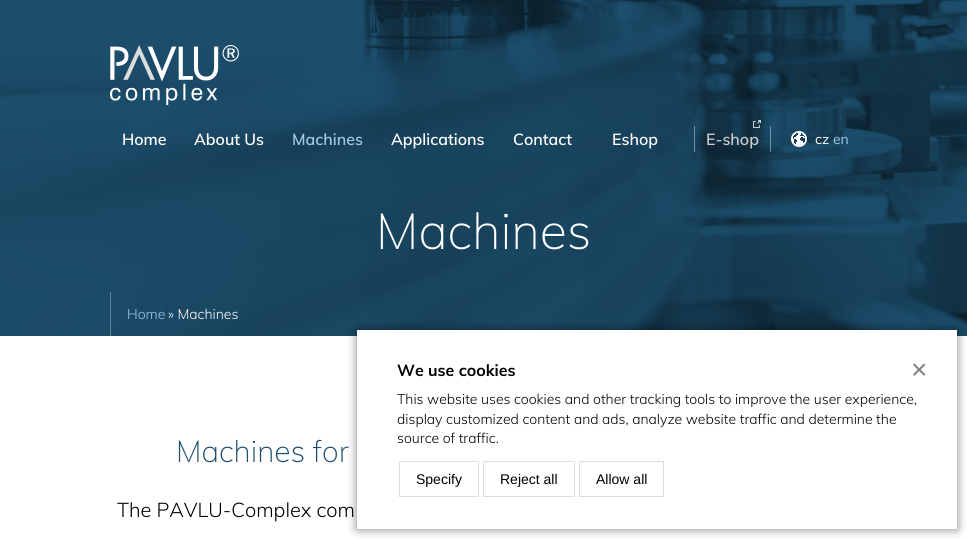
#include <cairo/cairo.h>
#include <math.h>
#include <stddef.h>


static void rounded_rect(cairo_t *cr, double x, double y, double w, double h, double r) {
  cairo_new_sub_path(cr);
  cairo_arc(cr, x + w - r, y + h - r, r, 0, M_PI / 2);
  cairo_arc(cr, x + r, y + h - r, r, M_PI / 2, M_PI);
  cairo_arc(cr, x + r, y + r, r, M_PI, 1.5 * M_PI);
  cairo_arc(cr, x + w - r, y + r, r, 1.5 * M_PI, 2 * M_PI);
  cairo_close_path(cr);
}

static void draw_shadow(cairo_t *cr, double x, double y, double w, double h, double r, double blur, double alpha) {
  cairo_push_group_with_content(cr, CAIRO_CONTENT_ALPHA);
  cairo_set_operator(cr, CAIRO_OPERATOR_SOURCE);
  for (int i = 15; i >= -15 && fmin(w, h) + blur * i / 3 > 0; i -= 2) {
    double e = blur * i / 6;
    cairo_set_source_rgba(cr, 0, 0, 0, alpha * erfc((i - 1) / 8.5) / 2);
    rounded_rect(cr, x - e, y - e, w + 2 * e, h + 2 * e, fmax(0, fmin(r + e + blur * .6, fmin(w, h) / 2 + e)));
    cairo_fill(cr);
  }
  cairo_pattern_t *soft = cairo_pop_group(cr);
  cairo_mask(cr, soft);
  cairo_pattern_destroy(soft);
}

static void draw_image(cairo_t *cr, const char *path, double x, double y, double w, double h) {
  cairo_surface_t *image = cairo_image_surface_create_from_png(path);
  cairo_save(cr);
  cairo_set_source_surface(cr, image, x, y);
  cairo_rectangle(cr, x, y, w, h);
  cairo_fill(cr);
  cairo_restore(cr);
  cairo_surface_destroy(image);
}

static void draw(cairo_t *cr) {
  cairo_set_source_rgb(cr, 1, 1, 1);
  cairo_paint(cr);
  draw_image(cr, "images/1.png", 0, 0, 967, 336);
  draw_image(cr, "images/2.png", 110, 45, 129, 60);
  cairo_set_source_rgba(cr, 1, 1, 1, 0.4);
  cairo_rectangle(cr, 770, 126, 1, 26);
  cairo_fill(cr);
  cairo_rectangle(cr, 694, 126, 1, 26);
  cairo_fill(cr);
  draw_image(cr, "images/3.png", 753, 120, 8, 8);
  draw_image(cr, "images/4.png", 791, 131, 16, 16);
  cairo_set_source_rgb(cr, 95 / 255.0, 129 / 255.0, 148 / 255.0);
  cairo_rectangle(cr, 110, 292, 1, 44);
  cairo_fill(cr);
  cairo_set_source_rgb(cr, 0, 0, 0);
  draw_shadow(cr, 357, 330, 600, 199, 0, 5, 0.5);
  cairo_set_source_rgb(cr, 1, 1, 1);
  cairo_rectangle(cr, 357, 330, 600, 199);
  cairo_fill(cr);
  cairo_rectangle(cr, 399.5, 461.5, 79, 35);
  cairo_set_source_rgb(cr, 221 / 255.0, 221 / 255.0, 221 / 255.0);
  cairo_set_line_width(cr, 1);
  cairo_stroke(cr);
  cairo_rectangle(cr, 483.5, 461.5, 91, 35);
  cairo_stroke(cr);
  cairo_rectangle(cr, 579.5, 461.5, 84, 35);
  cairo_stroke(cr);
  cairo_select_font_face(cr, "Muli SemiBold", CAIRO_FONT_SLANT_NORMAL, CAIRO_FONT_WEIGHT_NORMAL);
  cairo_set_font_size(cr, 16);
  cairo_set_source_rgb(cr, 1, 1, 1);
  cairo_move_to(cr, 122, 145);
  cairo_show_text(cr, "Home");
  cairo_move_to(cr, 194, 145);
  cairo_show_text(cr, "About Us");
  cairo_set_source_rgb(cr, 157 / 255.0, 203 / 255.0, 229 / 255.0);
  cairo_move_to(cr, 292, 145);
  cairo_show_text(cr, "Machines");
  cairo_set_source_rgb(cr, 1, 1, 1);
  cairo_move_to(cr, 391, 145);
  cairo_show_text(cr, "Applications");
  cairo_move_to(cr, 513, 145);
  cairo_show_text(cr, "Contact");
  cairo_move_to(cr, 612, 145);
  cairo_show_text(cr, "Eshop");
  cairo_set_source_rgb(cr, 204 / 255.0, 204 / 255.0, 204 / 255.0);
  cairo_move_to(cr, 706, 145);
  cairo_show_text(cr, "E-shop");
  cairo_select_font_face(cr, "Muli", CAIRO_FONT_SLANT_NORMAL, CAIRO_FONT_WEIGHT_NORMAL);
  cairo_set_font_size(cr, 14);
  cairo_set_source_rgb(cr, 1, 1, 1);
  cairo_move_to(cr, 815, 144);
  cairo_show_text(cr, "cz");
  cairo_set_source_rgb(cr, 157 / 255.0, 203 / 255.0, 229 / 255.0);
  cairo_move_to(cr, 833, 144);
  cairo_show_text(cr, "en");
  cairo_select_font_face(cr, "Muli ExtraLight", CAIRO_FONT_SLANT_NORMAL, CAIRO_FONT_WEIGHT_NORMAL);
  cairo_set_font_size(cr, 50);
  cairo_set_source_rgb(cr, 1, 1, 1);
  cairo_move_to(cr, 376, 249);
  cairo_show_text(cr, "Machines");
  cairo_select_font_face(cr, "Muli Light", CAIRO_FONT_SLANT_NORMAL, CAIRO_FONT_WEIGHT_NORMAL);
  cairo_set_font_size(cr, 14);
  cairo_set_source_rgb(cr, 157 / 255.0, 203 / 255.0, 229 / 255.0);
  cairo_move_to(cr, 127, 319);
  cairo_show_text(cr, "Home");
  cairo_set_source_rgb(cr, 1, 1, 1);
  cairo_move_to(cr, 168, 319);
  cairo_show_text(cr, "» Machines");
  cairo_select_font_face(cr, "Muli ExtraLight", CAIRO_FONT_SLANT_NORMAL, CAIRO_FONT_WEIGHT_NORMAL);
  cairo_set_font_size(cr, 30);
  cairo_set_source_rgb(cr, 26 / 255.0, 77 / 255.0, 108 / 255.0);
  cairo_move_to(cr, 176, 462);
  cairo_show_text(cr, "Machines for");
  cairo_select_font_face(cr, "Muli Light", CAIRO_FONT_SLANT_NORMAL, CAIRO_FONT_WEIGHT_NORMAL);
  cairo_set_font_size(cr, 20);
  cairo_set_source_rgb(cr, 0, 0, 0);
  cairo_move_to(cr, 117, 517);
  cairo_show_text(cr, "The PAVLU-Complex com");
  cairo_select_font_face(cr, "Muli", CAIRO_FONT_SLANT_NORMAL, CAIRO_FONT_WEIGHT_BOLD);
  cairo_set_font_size(cr, 16);
  cairo_move_to(cr, 397, 376);
  cairo_show_text(cr, "We use cookies");
  cairo_select_font_face(cr, "Muli Light", CAIRO_FONT_SLANT_NORMAL, CAIRO_FONT_WEIGHT_NORMAL);
  cairo_set_font_size(cr, 14);
  cairo_move_to(cr, 397, 404);
  cairo_show_text(cr, "This website uses cookies and other tracking tools to improve the user experience,");
  cairo_move_to(cr, 397, 424);
  cairo_show_text(cr, "display customized content and ads, analyze website traffic and determine the");
  cairo_move_to(cr, 397, 443);
  cairo_show_text(cr, "source of traffic.");
  cairo_select_font_face(cr, "Liberation Sans", CAIRO_FONT_SLANT_NORMAL, CAIRO_FONT_WEIGHT_NORMAL);
  cairo_move_to(cr, 416, 484);
  cairo_show_text(cr, "Specify");
  cairo_move_to(cr, 500, 484);
  cairo_show_text(cr, "Reject all");
  cairo_move_to(cr, 596, 484);
  cairo_show_text(cr, "Allow all");
  cairo_set_font_size(cr, 28);
  cairo_set_source_rgb(cr, 128 / 255.0, 128 / 255.0, 128 / 255.0);
  cairo_move_to(cr, 911, 379);
  cairo_show_text(cr, "×");
}

int main(void) {
  cairo_surface_t *surface = cairo_image_surface_create(CAIRO_FORMAT_RGB24, 967, 539);
  cairo_t *cr = cairo_create(surface);
  cairo_font_options_t *options = cairo_font_options_create();
  cairo_font_options_set_hint_metrics(options, CAIRO_HINT_METRICS_OFF);
  cairo_font_options_set_hint_style(options, CAIRO_HINT_STYLE_NONE);
  cairo_set_font_options(cr, options);
  cairo_set_miter_limit(cr, 4);
  draw(cr);
  cairo_surface_write_to_png(surface, "out.png");
  cairo_font_options_destroy(options);
  cairo_destroy(cr);
  cairo_surface_destroy(surface);
  return 0;
}
